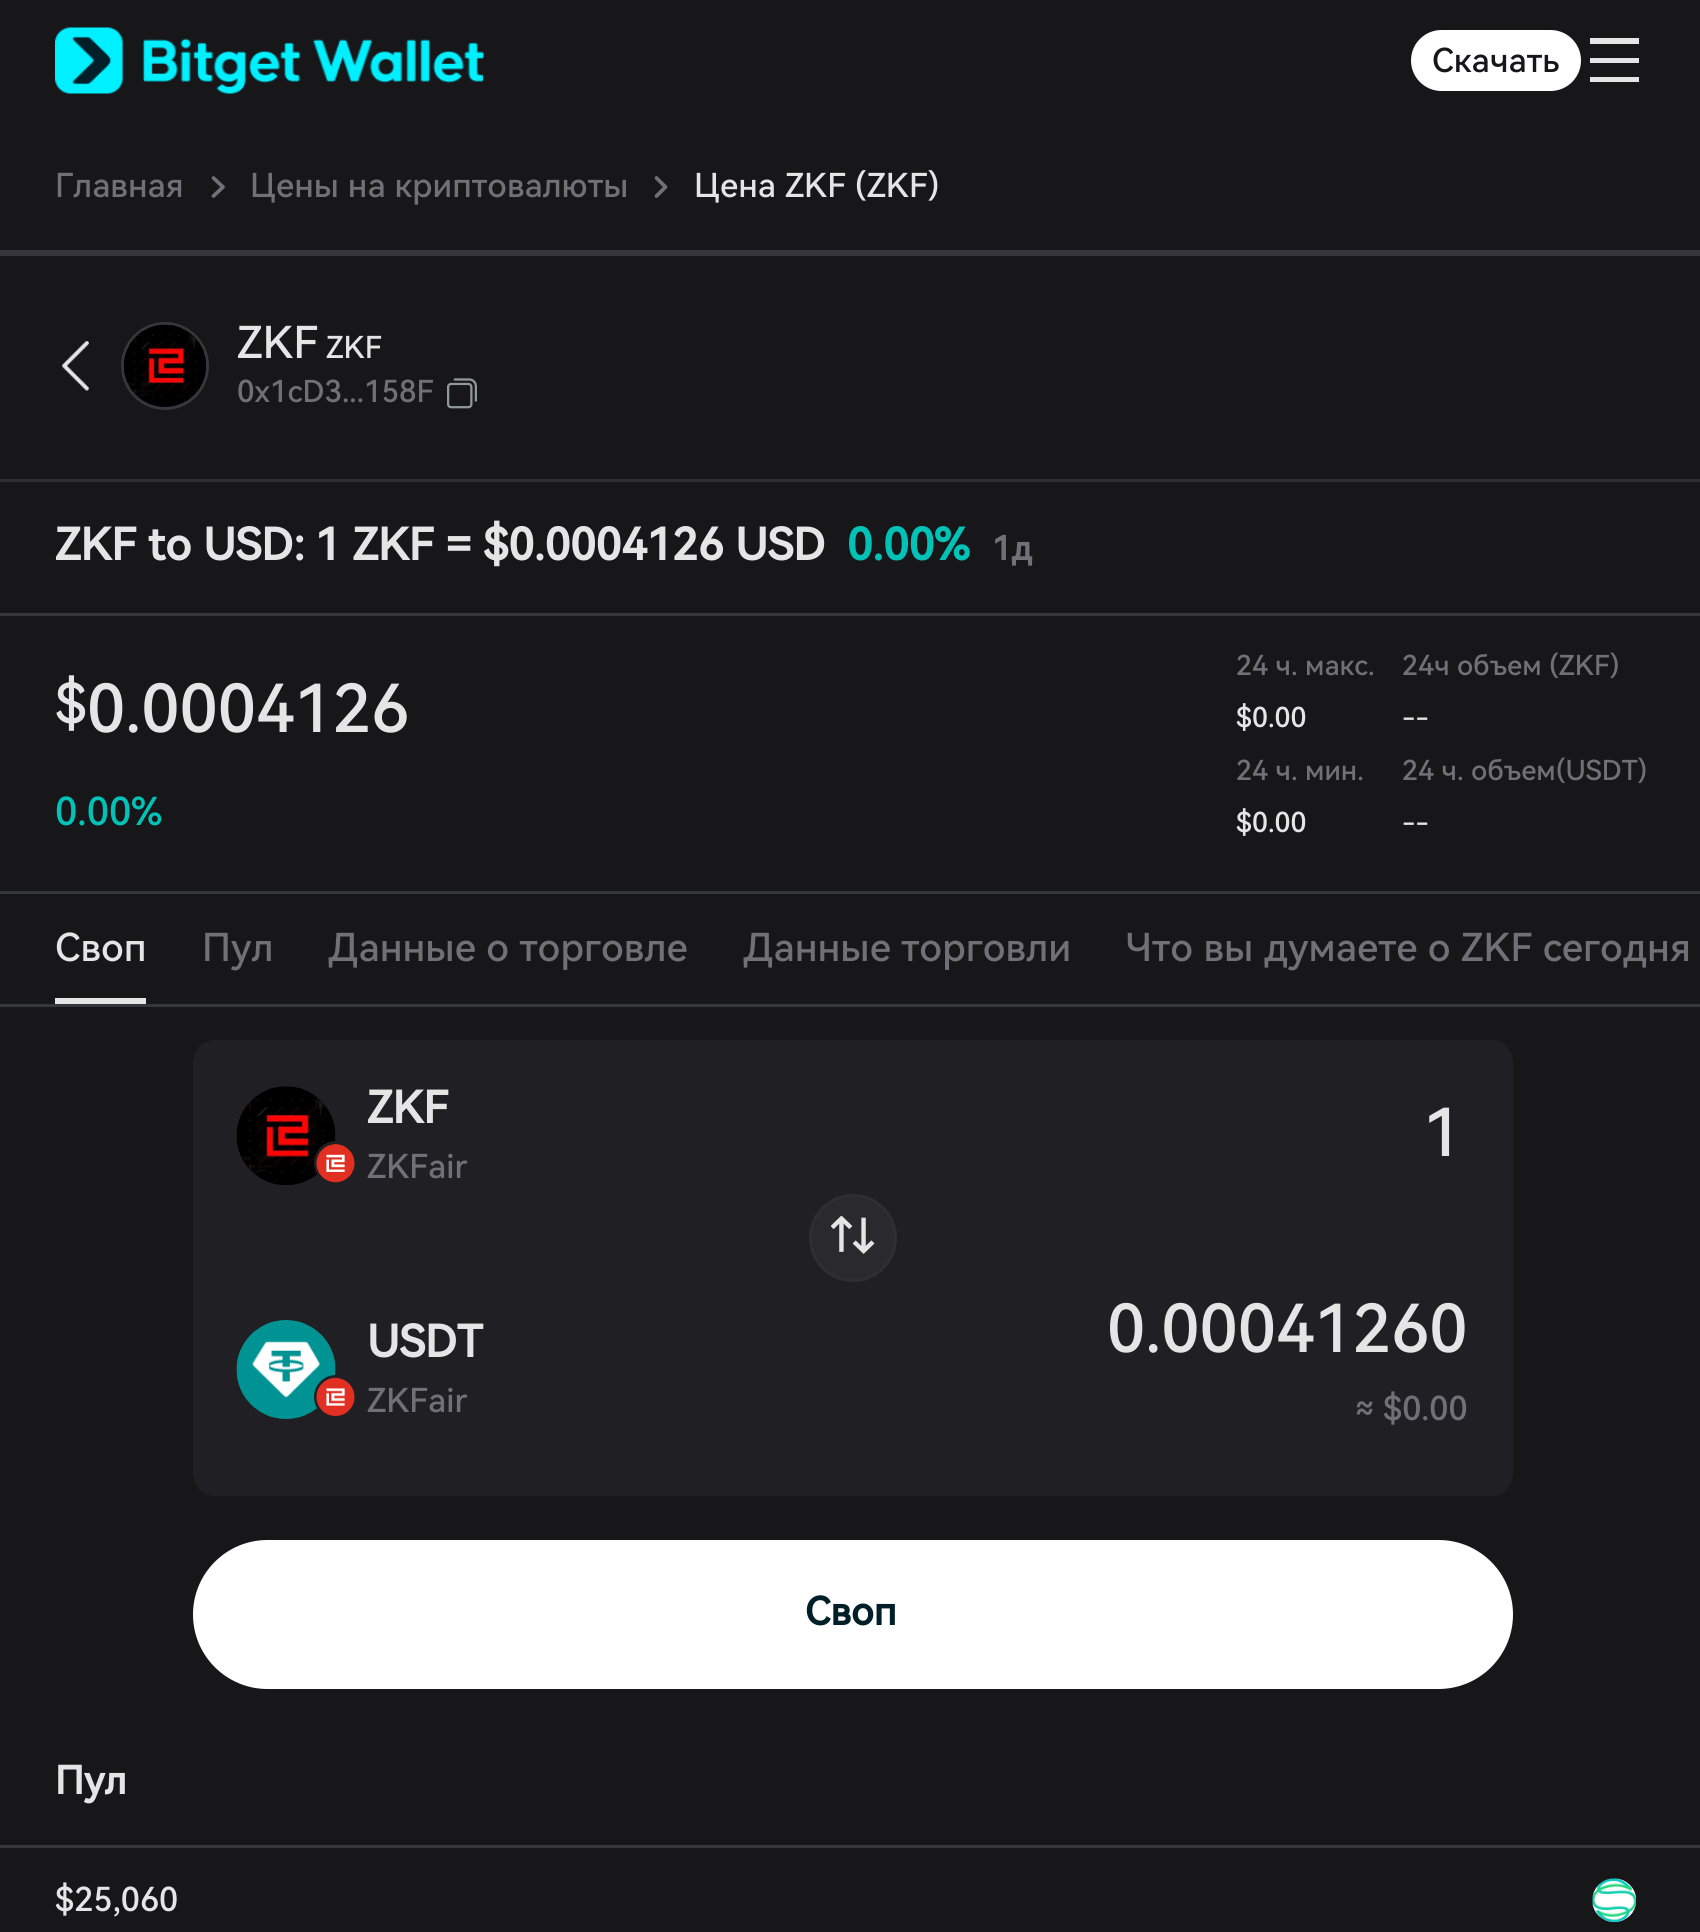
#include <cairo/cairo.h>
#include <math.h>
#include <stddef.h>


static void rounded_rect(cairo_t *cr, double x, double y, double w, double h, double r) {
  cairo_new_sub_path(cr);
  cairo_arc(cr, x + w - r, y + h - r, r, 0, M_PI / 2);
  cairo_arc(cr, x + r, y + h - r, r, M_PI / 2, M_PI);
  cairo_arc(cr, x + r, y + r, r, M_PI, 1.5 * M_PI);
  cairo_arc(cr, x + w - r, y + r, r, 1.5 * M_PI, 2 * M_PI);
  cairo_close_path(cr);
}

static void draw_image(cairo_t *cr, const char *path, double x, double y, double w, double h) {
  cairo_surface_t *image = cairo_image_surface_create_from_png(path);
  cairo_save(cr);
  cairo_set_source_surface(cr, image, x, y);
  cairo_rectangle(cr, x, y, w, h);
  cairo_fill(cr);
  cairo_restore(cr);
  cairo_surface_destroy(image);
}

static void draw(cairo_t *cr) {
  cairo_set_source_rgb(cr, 23 / 255.0, 23 / 255.0, 26 / 255.0);
  cairo_paint(cr);
  draw_image(cr, "images/1.png", 55, 27, 429, 67);
  cairo_set_source_rgb(cr, 1, 1, 1);
  rounded_rect(cr, 1411, 30, 170, 61, 30.5);
  cairo_fill(cr);
  cairo_set_source_rgb(cr, 229 / 255.0, 229 / 255.0, 229 / 255.0);
  cairo_new_path(cr);
  cairo_move_to(cr, 1590, 38);
  cairo_line_to(cr, 1639, 38);
  cairo_line_to(cr, 1639, 44);
  cairo_line_to(cr, 1590, 44);
  cairo_close_path(cr);
  cairo_move_to(cr, 1590, 58);
  cairo_line_to(cr, 1639, 58);
  cairo_line_to(cr, 1639, 63);
  cairo_line_to(cr, 1590, 63);
  cairo_close_path(cr);
  cairo_move_to(cr, 1590, 77);
  cairo_line_to(cr, 1639, 77);
  cairo_line_to(cr, 1639, 82);
  cairo_line_to(cr, 1590, 82);
  cairo_close_path(cr);
  cairo_fill(cr);
  cairo_set_source_rgb(cr, 54 / 255.0, 54 / 255.0, 61 / 255.0);
  cairo_rectangle(cr, 0, 250, 1700, 6);
  cairo_fill(cr);
  cairo_new_path(cr);
  cairo_move_to(cr, 213.5, 178);
  cairo_line_to(cr, 223, 187);
  cairo_line_to(cr, 213.5, 196);
  cairo_set_source_rgb(cr, 112 / 255.0, 112 / 255.0, 118 / 255.0);
  cairo_set_line_width(cr, 3.7);
  cairo_set_line_cap(cr, CAIRO_LINE_CAP_ROUND);
  cairo_set_line_join(cr, CAIRO_LINE_JOIN_ROUND);
  cairo_stroke(cr);
  cairo_new_path(cr);
  cairo_move_to(cr, 656.5, 178);
  cairo_line_to(cr, 665.5, 187);
  cairo_line_to(cr, 656.5, 196);
  cairo_stroke(cr);
  draw_image(cr, "images/2.png", 61, 341, 28, 50);
  cairo_arc(cr, 165, 366, 42.5, 0, 2 * M_PI);
  cairo_set_source_rgb(cr, 54 / 255.0, 54 / 255.0, 61 / 255.0);
  cairo_set_line_width(cr, 3);
  cairo_set_line_cap(cr, CAIRO_LINE_CAP_BUTT);
  cairo_set_line_join(cr, CAIRO_LINE_JOIN_MITER);
  cairo_stroke(cr);
  draw_image(cr, "images/3.png", 124, 324, 82, 83);
  draw_image(cr, "images/4.png", 447, 378, 30, 31);
  cairo_set_source_rgb(cr, 46 / 255.0, 46 / 255.0, 51 / 255.0);
  cairo_rectangle(cr, 0, 479, 1700, 3);
  cairo_fill(cr);
  cairo_set_source_rgb(cr, 54 / 255.0, 54 / 255.0, 61 / 255.0);
  cairo_rectangle(cr, 0, 613, 1700, 3);
  cairo_fill(cr);
  cairo_rectangle(cr, 0, 891, 1700, 3);
  cairo_fill(cr);
  cairo_rectangle(cr, 0, 1004, 1700, 3);
  cairo_fill(cr);
  cairo_set_source_rgb(cr, 229 / 255.0, 229 / 255.0, 229 / 255.0);
  cairo_rectangle(cr, 55, 998, 91, 6);
  cairo_fill(cr);
  cairo_set_source_rgb(cr, 32 / 255.0, 32 / 255.0, 36 / 255.0);
  rounded_rect(cr, 193, 1040, 1320, 456, 22);
  cairo_fill(cr);
  draw_image(cr, "images/5.png", 236, 1086, 100, 99);
  cairo_arc(cr, 336, 1163, 20.5, 0, 2 * M_PI);
  cairo_stroke(cr);
  draw_image(cr, "images/6.png", 316, 1144, 39, 39);
  cairo_set_source_rgb(cr, 42 / 255.0, 41 / 255.0, 46 / 255.0);
  cairo_arc(cr, 853, 1238, 42.5, 0, 2 * M_PI);
  cairo_fill_preserve(cr);
  cairo_set_source_rgb(cr, 46 / 255.0, 46 / 255.0, 51 / 255.0);
  cairo_stroke(cr);
  draw_image(cr, "images/7.png", 831, 1216, 44, 38);
  draw_image(cr, "images/8.png", 236, 1320, 100, 99);
  cairo_arc(cr, 336, 1397, 20.5, 0, 2 * M_PI);
  cairo_set_source_rgb(cr, 32 / 255.0, 32 / 255.0, 36 / 255.0);
  cairo_stroke(cr);
  draw_image(cr, "images/9.png", 316, 1377, 39, 40);
  cairo_set_source_rgb(cr, 1, 1, 1);
  rounded_rect(cr, 193, 1540, 1320, 149, 74.5);
  cairo_fill(cr);
  cairo_set_source_rgb(cr, 54 / 255.0, 54 / 255.0, 61 / 255.0);
  cairo_rectangle(cr, 0, 1845, 1700, 3);
  cairo_fill(cr);
  draw_image(cr, "images/10.png", 1592, 1878, 45, 45);
  cairo_select_font_face(cr, "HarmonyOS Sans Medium", CAIRO_FONT_SLANT_NORMAL, CAIRO_FONT_WEIGHT_NORMAL);
  cairo_set_font_size(cr, 33);
  cairo_set_source_rgb(cr, 23 / 255.0, 23 / 255.0, 26 / 255.0);
  cairo_move_to(cr, 1432, 72);
  cairo_show_text(cr, "Скачать");
  cairo_set_source_rgb(cr, 112 / 255.0, 112 / 255.0, 118 / 255.0);
  cairo_move_to(cr, 55, 197);
  cairo_show_text(cr, "Главная");
  cairo_move_to(cr, 250, 197);
  cairo_show_text(cr, "Цены на криптовалюты");
  cairo_set_source_rgb(cr, 229 / 255.0, 229 / 255.0, 229 / 255.0);
  cairo_move_to(cr, 694, 197);
  cairo_show_text(cr, "Цена ZKF (ZKF)");
  cairo_set_font_size(cr, 44);
  cairo_move_to(cr, 237, 358);
  cairo_show_text(cr, "ZKF");
  cairo_set_font_size(cr, 30.25);
  cairo_move_to(cr, 326, 358);
  cairo_show_text(cr, "ZKF");
  cairo_set_source_rgb(cr, 112 / 255.0, 112 / 255.0, 118 / 255.0);
  cairo_move_to(cr, 237, 402);
  cairo_show_text(cr, "0x1cD3...158F");
  cairo_select_font_face(cr, "HarmonyOS Sans", CAIRO_FONT_SLANT_NORMAL, CAIRO_FONT_WEIGHT_BOLD);
  cairo_set_font_size(cr, 44);
  cairo_set_source_rgb(cr, 229 / 255.0, 229 / 255.0, 229 / 255.0);
  cairo_move_to(cr, 55, 560);
  cairo_show_text(cr, "ZKF to USD:");
  cairo_move_to(cr, 315, 560);
  cairo_show_text(cr, "1 ZKF = $0.0004126 USD");
  cairo_set_source_rgb(cr, 0, 194 / 255.0, 183 / 255.0);
  cairo_move_to(cr, 847, 560);
  cairo_show_text(cr, "0.00%");
  cairo_set_font_size(cr, 33);
  cairo_set_source_rgb(cr, 112 / 255.0, 112 / 255.0, 118 / 255.0);
  cairo_move_to(cr, 992, 560);
  cairo_show_text(cr, "1д");
  cairo_select_font_face(cr, "HarmonyOS Sans Medium", CAIRO_FONT_SLANT_NORMAL, CAIRO_FONT_WEIGHT_NORMAL);
  cairo_set_font_size(cr, 55);
  cairo_set_source_rgb(cr, 229 / 255.0, 229 / 255.0, 229 / 255.0);
  cairo_move_to(cr, 55, 723);
  cairo_show_text(cr, "$");
  cairo_set_font_size(cr, 66);
  cairo_move_to(cr, 87, 732);
  cairo_show_text(cr, "0.0004126");
  cairo_set_font_size(cr, 38.5);
  cairo_set_source_rgb(cr, 0, 194 / 255.0, 183 / 255.0);
  cairo_move_to(cr, 55, 825);
  cairo_show_text(cr, "0.00%");
  cairo_set_font_size(cr, 27.5);
  cairo_set_source_rgb(cr, 112 / 255.0, 112 / 255.0, 118 / 255.0);
  cairo_move_to(cr, 1236, 675);
  cairo_show_text(cr, "24 ч. макс.");
  cairo_set_source_rgb(cr, 229 / 255.0, 229 / 255.0, 229 / 255.0);
  cairo_move_to(cr, 1236, 727);
  cairo_show_text(cr, "$0.00");
  cairo_set_source_rgb(cr, 112 / 255.0, 112 / 255.0, 118 / 255.0);
  cairo_move_to(cr, 1236, 780);
  cairo_show_text(cr, "24 ч. мин.");
  cairo_set_source_rgb(cr, 229 / 255.0, 229 / 255.0, 229 / 255.0);
  cairo_move_to(cr, 1236, 832);
  cairo_show_text(cr, "$0.00");
  cairo_set_source_rgb(cr, 112 / 255.0, 112 / 255.0, 118 / 255.0);
  cairo_move_to(cr, 1402, 675);
  cairo_show_text(cr, "24ч объем (ZKF)");
  cairo_set_source_rgb(cr, 229 / 255.0, 229 / 255.0, 229 / 255.0);
  cairo_move_to(cr, 1402, 727);
  cairo_show_text(cr, "--");
  cairo_set_source_rgb(cr, 112 / 255.0, 112 / 255.0, 118 / 255.0);
  cairo_move_to(cr, 1402, 780);
  cairo_show_text(cr, "24 ч. объем(USDT)");
  cairo_set_source_rgb(cr, 229 / 255.0, 229 / 255.0, 229 / 255.0);
  cairo_move_to(cr, 1402, 832);
  cairo_show_text(cr, "--");
  cairo_set_font_size(cr, 38.5);
  cairo_move_to(cr, 55, 961);
  cairo_show_text(cr, "Своп");
  cairo_set_source_rgb(cr, 112 / 255.0, 112 / 255.0, 118 / 255.0);
  cairo_move_to(cr, 202, 961);
  cairo_show_text(cr, "Пул");
  cairo_move_to(cr, 328, 961);
  cairo_show_text(cr, "Данные о торговле");
  cairo_move_to(cr, 743, 961);
  cairo_show_text(cr, "Данные торговли");
  cairo_move_to(cr, 1126, 961);
  cairo_show_text(cr, "Что вы думаете о ZKF сегодня");
  cairo_select_font_face(cr, "HarmonyOS Sans", CAIRO_FONT_SLANT_NORMAL, CAIRO_FONT_WEIGHT_BOLD);
  cairo_set_font_size(cr, 44);
  cairo_set_source_rgb(cr, 229 / 255.0, 229 / 255.0, 229 / 255.0);
  cairo_move_to(cr, 367, 1123);
  cairo_show_text(cr, "ZKF");
  cairo_select_font_face(cr, "HarmonyOS Sans Medium", CAIRO_FONT_SLANT_NORMAL, CAIRO_FONT_WEIGHT_NORMAL);
  cairo_set_font_size(cr, 33);
  cairo_set_source_rgb(cr, 112 / 255.0, 112 / 255.0, 118 / 255.0);
  cairo_move_to(cr, 367, 1178);
  cairo_show_text(cr, "ZKFair");
  cairo_set_font_size(cr, 66);
  cairo_set_source_rgb(cr, 229 / 255.0, 229 / 255.0, 229 / 255.0);
  cairo_move_to(cr, 1423, 1156);
  cairo_show_text(cr, "1");
  cairo_select_font_face(cr, "HarmonyOS Sans", CAIRO_FONT_SLANT_NORMAL, CAIRO_FONT_WEIGHT_BOLD);
  cairo_set_font_size(cr, 44);
  cairo_move_to(cr, 367, 1357);
  cairo_show_text(cr, "USDT");
  cairo_select_font_face(cr, "HarmonyOS Sans Medium", CAIRO_FONT_SLANT_NORMAL, CAIRO_FONT_WEIGHT_NORMAL);
  cairo_set_font_size(cr, 33);
  cairo_set_source_rgb(cr, 112 / 255.0, 112 / 255.0, 118 / 255.0);
  cairo_move_to(cr, 367, 1412);
  cairo_show_text(cr, "ZKFair");
  cairo_set_font_size(cr, 66);
  cairo_set_source_rgb(cr, 229 / 255.0, 229 / 255.0, 229 / 255.0);
  cairo_move_to(cr, 1107, 1352);
  cairo_show_text(cr, "0.00041260");
  cairo_set_font_size(cr, 33);
  cairo_set_source_rgb(cr, 112 / 255.0, 112 / 255.0, 118 / 255.0);
  cairo_move_to(cr, 1355, 1420);
  cairo_show_text(cr, "≈ $0.00");
  cairo_select_font_face(cr, "HarmonyOS Sans", CAIRO_FONT_SLANT_NORMAL, CAIRO_FONT_WEIGHT_BOLD);
  cairo_set_font_size(cr, 38.5);
  cairo_set_source_rgb(cr, 0, 31 / 255.0, 41 / 255.0);
  cairo_move_to(cr, 805, 1625);
  cairo_show_text(cr, "Своп");
  cairo_set_source_rgb(cr, 229 / 255.0, 229 / 255.0, 229 / 255.0);
  cairo_move_to(cr, 55, 1794);
  cairo_show_text(cr, "Пул");
  cairo_select_font_face(cr, "HarmonyOS Sans Medium", CAIRO_FONT_SLANT_NORMAL, CAIRO_FONT_WEIGHT_NORMAL);
  cairo_set_font_size(cr, 33);
  cairo_move_to(cr, 55, 1911);
  cairo_show_text(cr, "$25,060");
}

int main(void) {
  cairo_surface_t *surface = cairo_image_surface_create(CAIRO_FORMAT_RGB24, 1700, 1932);
  cairo_t *cr = cairo_create(surface);
  cairo_font_options_t *options = cairo_font_options_create();
  cairo_font_options_set_hint_metrics(options, CAIRO_HINT_METRICS_OFF);
  cairo_font_options_set_hint_style(options, CAIRO_HINT_STYLE_NONE);
  cairo_set_font_options(cr, options);
  cairo_set_miter_limit(cr, 4);
  draw(cr);
  cairo_surface_write_to_png(surface, "out.png");
  cairo_font_options_destroy(options);
  cairo_destroy(cr);
  cairo_surface_destroy(surface);
  return 0;
}
